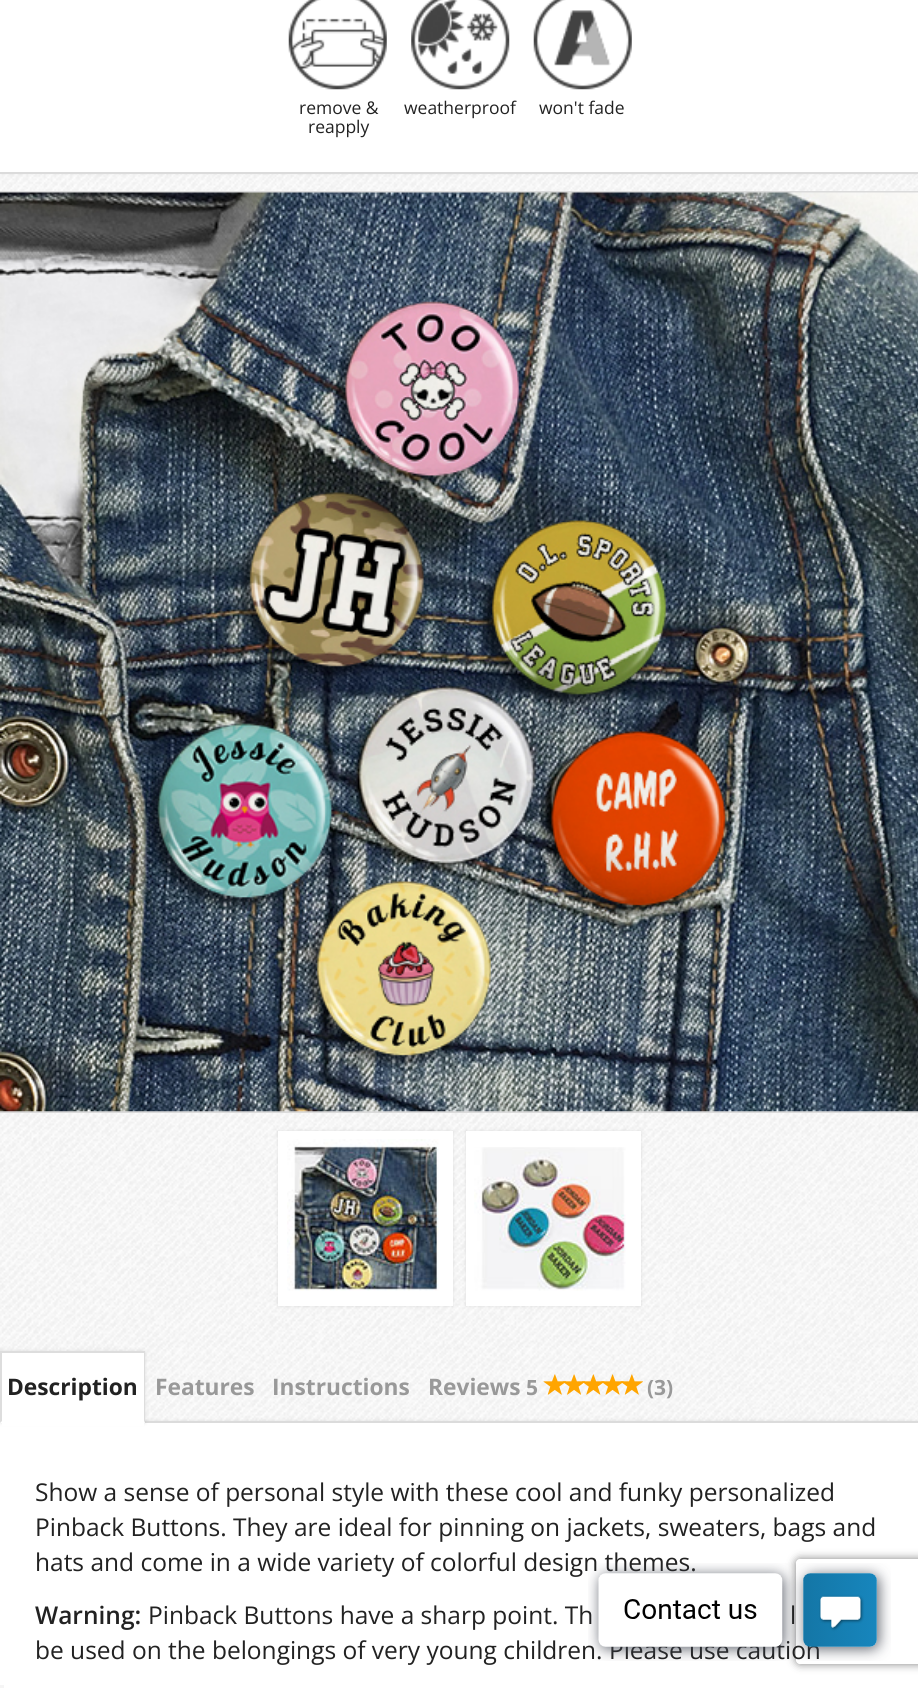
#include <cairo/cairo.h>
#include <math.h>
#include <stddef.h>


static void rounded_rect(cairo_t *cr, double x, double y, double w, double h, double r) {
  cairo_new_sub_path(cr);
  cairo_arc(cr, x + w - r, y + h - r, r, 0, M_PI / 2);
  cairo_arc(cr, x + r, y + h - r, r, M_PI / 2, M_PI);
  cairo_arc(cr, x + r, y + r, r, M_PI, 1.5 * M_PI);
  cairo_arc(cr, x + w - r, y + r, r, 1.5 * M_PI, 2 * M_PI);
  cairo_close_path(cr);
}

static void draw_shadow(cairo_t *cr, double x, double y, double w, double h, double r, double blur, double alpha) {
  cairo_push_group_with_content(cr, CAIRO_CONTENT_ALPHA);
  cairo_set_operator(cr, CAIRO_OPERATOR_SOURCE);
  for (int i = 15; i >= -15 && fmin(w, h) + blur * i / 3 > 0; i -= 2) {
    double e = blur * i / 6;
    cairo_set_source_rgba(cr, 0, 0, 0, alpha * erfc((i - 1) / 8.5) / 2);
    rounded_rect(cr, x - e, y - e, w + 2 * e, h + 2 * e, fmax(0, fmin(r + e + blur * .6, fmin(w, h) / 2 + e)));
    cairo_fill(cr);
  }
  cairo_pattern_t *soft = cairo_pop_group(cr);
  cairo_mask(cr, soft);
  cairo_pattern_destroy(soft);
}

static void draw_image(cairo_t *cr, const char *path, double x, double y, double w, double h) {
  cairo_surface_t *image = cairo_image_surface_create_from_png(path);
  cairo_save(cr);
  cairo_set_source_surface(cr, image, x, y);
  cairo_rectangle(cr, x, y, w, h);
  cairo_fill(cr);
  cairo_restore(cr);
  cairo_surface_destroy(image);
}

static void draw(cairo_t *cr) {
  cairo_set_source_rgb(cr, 1, 1, 1);
  cairo_paint(cr);
  draw_image(cr, "images/1.png", 0, 174, 918, 1247);
  cairo_set_source_rgb(cr, 0, 0, 0);
  draw_shadow(cr, 0, -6, 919, 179, 0, 2, 0.1);
  cairo_set_source_rgb(cr, 1, 1, 1);
  cairo_rectangle(cr, 0, 0, 918, 172);
  cairo_fill(cr);
  cairo_set_source_rgb(cr, 219 / 255.0, 219 / 255.0, 219 / 255.0);
  cairo_rectangle(cr, 0, 172, 918, 2);
  cairo_fill(cr);
  draw_image(cr, "images/2.png", 288, 0, 99, 90);
  draw_image(cr, "images/3.png", 411, 0, 99, 90);
  draw_image(cr, "images/4.png", 533, 0, 99, 90);
  cairo_rectangle(cr, 0, 191, 918, 2);
  cairo_fill(cr);
  cairo_rectangle(cr, 0, 1111, 918, 2);
  cairo_fill(cr);
  draw_image(cr, "images/5.png", 0, 192, 918, 920);
  cairo_set_source_rgb(cr, 0, 0, 0);
  draw_shadow(cr, 278, 1131, 175, 175, 0, 2, 0.1);
  cairo_set_source_rgb(cr, 1, 1, 1);
  cairo_rectangle(cr, 278, 1131, 175, 175);
  cairo_fill(cr);
  draw_image(cr, "images/6.png", 287, 1139, 152, 152);
  cairo_set_source_rgb(cr, 0, 0, 0);
  draw_shadow(cr, 466, 1131, 175, 175, 0, 2, 0.1);
  cairo_set_source_rgb(cr, 1, 1, 1);
  cairo_rectangle(cr, 466, 1131, 175, 175);
  cairo_fill(cr);
  draw_image(cr, "images/7.png", 474, 1147, 152, 144);
  cairo_set_source_rgb(cr, 0, 0, 0);
  draw_shadow(cr, 0, 1421, 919, 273, 0, 2, 0.1);
  cairo_set_source_rgb(cr, 1, 1, 1);
  cairo_rectangle(cr, 0, 1423, 918, 265);
  cairo_fill(cr);
  cairo_set_source_rgb(cr, 219 / 255.0, 219 / 255.0, 219 / 255.0);
  cairo_rectangle(cr, 145, 1421, 773, 2);
  cairo_fill(cr);
  cairo_set_source_rgb(cr, 0, 0, 0);
  draw_shadow(cr, 0, 1351, 145, 72, 0, 2, 0.1);
  cairo_set_source_rgb(cr, 1, 1, 1);
  cairo_rectangle(cr, 0, 1353, 145, 70);
  cairo_fill(cr);
  cairo_set_source_rgb(cr, 221 / 255.0, 221 / 255.0, 221 / 255.0);
  cairo_rectangle(cr, 0, 1351, 145, 2);
  cairo_fill(cr);
  cairo_new_path(cr);
  cairo_move_to(cr, 145, 1351);
  cairo_line_to(cr, 145, 1423);
  cairo_line_to(cr, 144, 1421);
  cairo_line_to(cr, 144, 1353);
  cairo_close_path(cr);
  cairo_fill(cr);
  cairo_new_path(cr);
  cairo_move_to(cr, 0, 1423);
  cairo_line_to(cr, 0, 1351);
  cairo_line_to(cr, 2, 1353);
  cairo_line_to(cr, 2, 1421);
  cairo_close_path(cr);
  cairo_fill(cr);
  cairo_set_source_rgb(cr, 1, 1, 1);
  cairo_rectangle(cr, 2, 1423, 142, 3);
  cairo_fill(cr);
  draw_image(cr, "images/8.png", 543, 1374, 23, 21);
  draw_image(cr, "images/9.png", 562, 1374, 24, 21);
  draw_image(cr, "images/10.png", 582, 1374, 23, 21);
  draw_image(cr, "images/11.png", 601, 1374, 23, 21);
  draw_image(cr, "images/12.png", 620, 1374, 23, 21);
  cairo_save(cr);
  cairo_set_fill_rule(cr, CAIRO_FILL_RULE_EVEN_ODD);
  cairo_new_path(cr);
  cairo_move_to(cr, 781, 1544);
  cairo_line_to(cr, 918, 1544);
  cairo_line_to(cr, 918, 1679);
  cairo_line_to(cr, 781, 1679);
  cairo_close_path(cr);
  cairo_move_to(cr, 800, 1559);
  cairo_line_to(cr, 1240, 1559);
  cairo_curve_to(cr, 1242, 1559, 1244, 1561, 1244, 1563);
  cairo_line_to(cr, 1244, 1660);
  cairo_curve_to(cr, 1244, 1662, 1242, 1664, 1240, 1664);
  cairo_line_to(cr, 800, 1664);
  cairo_curve_to(cr, 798, 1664, 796, 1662, 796, 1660);
  cairo_line_to(cr, 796, 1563);
  cairo_curve_to(cr, 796, 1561, 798, 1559, 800, 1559);
  cairo_close_path(cr);
  cairo_clip(cr);
  cairo_set_source_rgb(cr, 128 / 255.0, 128 / 255.0, 128 / 255.0);
  draw_shadow(cr, 796, 1559, 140, 105, 4, 4.5, 1);
  cairo_restore(cr);
  cairo_set_source_rgb(cr, 245 / 255.0, 245 / 255.0, 245 / 255.0);
  cairo_rectangle(cr, 0, 1685, 4, 3);
  cairo_fill(cr);
  cairo_select_font_face(cr, "Open Sans", CAIRO_FONT_SLANT_NORMAL, CAIRO_FONT_WEIGHT_NORMAL);
  cairo_set_font_size(cr, 17.5);
  cairo_set_source_rgb(cr, 34 / 255.0, 34 / 255.0, 34 / 255.0);
  cairo_move_to(cr, 299, 114);
  cairo_show_text(cr, "remove &");
  cairo_move_to(cr, 308, 133);
  cairo_show_text(cr, "reapply");
  cairo_move_to(cr, 404, 114);
  cairo_show_text(cr, "weatherproof");
  cairo_move_to(cr, 539, 114);
  cairo_show_text(cr, "won't fade");
  cairo_select_font_face(cr, "Open Sans", CAIRO_FONT_SLANT_NORMAL, CAIRO_FONT_WEIGHT_BOLD);
  cairo_set_font_size(cr, 22.75);
  cairo_move_to(cr, 7, 1395);
  cairo_show_text(cr, "Description");
  cairo_set_source_rgb(cr, 153 / 255.0, 153 / 255.0, 153 / 255.0);
  cairo_move_to(cr, 155, 1395);
  cairo_show_text(cr, "Features");
  cairo_move_to(cr, 272, 1395);
  cairo_show_text(cr, "Instructions");
  cairo_move_to(cr, 428, 1395);
  cairo_show_text(cr, "Reviews");
  cairo_set_font_size(cr, 21);
  cairo_move_to(cr, 526, 1395);
  cairo_show_text(cr, "5");
  cairo_move_to(cr, 647, 1395);
  cairo_show_text(cr, "(3)");
  cairo_select_font_face(cr, "Open Sans", CAIRO_FONT_SLANT_NORMAL, CAIRO_FONT_WEIGHT_NORMAL);
  cairo_set_font_size(cr, 24.5);
  cairo_set_source_rgb(cr, 34 / 255.0, 34 / 255.0, 34 / 255.0);
  cairo_move_to(cr, 35, 1501);
  cairo_show_text(cr, "Show a sense of personal style with these cool and funky personalized");
  cairo_move_to(cr, 35, 1536);
  cairo_show_text(cr, "Pinback Buttons. They are ideal for pinning on jackets, sweaters, bags and");
  cairo_move_to(cr, 35, 1571);
  cairo_show_text(cr, "hats and come in a wide variety of colorful design themes.");
  cairo_select_font_face(cr, "Open Sans SemiBold", CAIRO_FONT_SLANT_NORMAL, CAIRO_FONT_WEIGHT_NORMAL);
  cairo_move_to(cr, 35, 1624);
  cairo_show_text(cr, "Warning:");
  cairo_select_font_face(cr, "Open Sans", CAIRO_FONT_SLANT_NORMAL, CAIRO_FONT_WEIGHT_NORMAL);
  cairo_move_to(cr, 148, 1624);
  cairo_show_text(cr, "Pinback Buttons have a sharp point. Th");
  cairo_move_to(cr, 790, 1624);
  cairo_show_text(cr, "l");
  cairo_move_to(cr, 35, 1659);
  cairo_show_text(cr, "be used on the belongings of very young children. Please use caution");
  draw_image(cr, "images/13.png", 588, 1563, 303, 98);
}

int main(void) {
  cairo_surface_t *surface = cairo_image_surface_create(CAIRO_FORMAT_RGB24, 918, 1688);
  cairo_t *cr = cairo_create(surface);
  cairo_font_options_t *options = cairo_font_options_create();
  cairo_font_options_set_hint_metrics(options, CAIRO_HINT_METRICS_OFF);
  cairo_font_options_set_hint_style(options, CAIRO_HINT_STYLE_NONE);
  cairo_set_font_options(cr, options);
  cairo_set_miter_limit(cr, 4);
  draw(cr);
  cairo_surface_write_to_png(surface, "out.png");
  cairo_font_options_destroy(options);
  cairo_destroy(cr);
  cairo_surface_destroy(surface);
  return 0;
}
